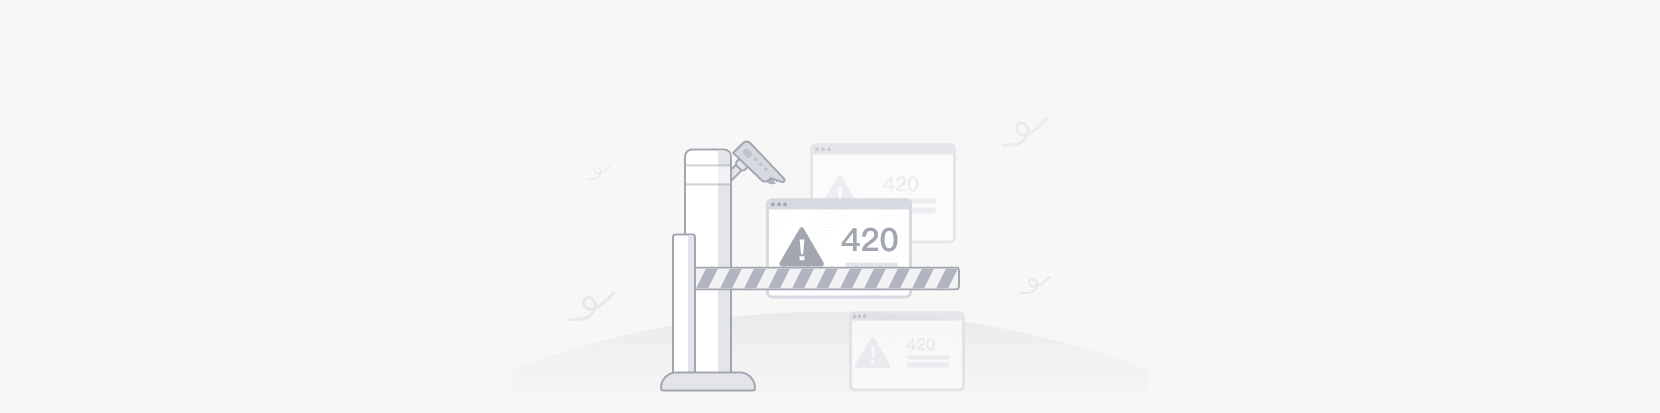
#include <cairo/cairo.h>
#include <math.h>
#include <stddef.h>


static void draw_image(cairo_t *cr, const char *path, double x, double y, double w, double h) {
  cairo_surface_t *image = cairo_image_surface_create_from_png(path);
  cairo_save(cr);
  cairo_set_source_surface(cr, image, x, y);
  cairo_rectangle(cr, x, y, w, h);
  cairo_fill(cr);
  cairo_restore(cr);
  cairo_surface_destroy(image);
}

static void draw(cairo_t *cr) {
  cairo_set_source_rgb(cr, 247 / 255.0, 247 / 255.0, 247 / 255.0);
  cairo_paint(cr);
  draw_image(cr, "images/1.png", 511, 117, 637, 275);
}

int main(void) {
  cairo_surface_t *surface = cairo_image_surface_create(CAIRO_FORMAT_RGB24, 1660, 413);
  cairo_t *cr = cairo_create(surface);
  cairo_font_options_t *options = cairo_font_options_create();
  cairo_font_options_set_hint_metrics(options, CAIRO_HINT_METRICS_OFF);
  cairo_font_options_set_hint_style(options, CAIRO_HINT_STYLE_NONE);
  cairo_set_font_options(cr, options);
  cairo_set_miter_limit(cr, 4);
  draw(cr);
  cairo_surface_write_to_png(surface, "out.png");
  cairo_font_options_destroy(options);
  cairo_destroy(cr);
  cairo_surface_destroy(surface);
  return 0;
}
